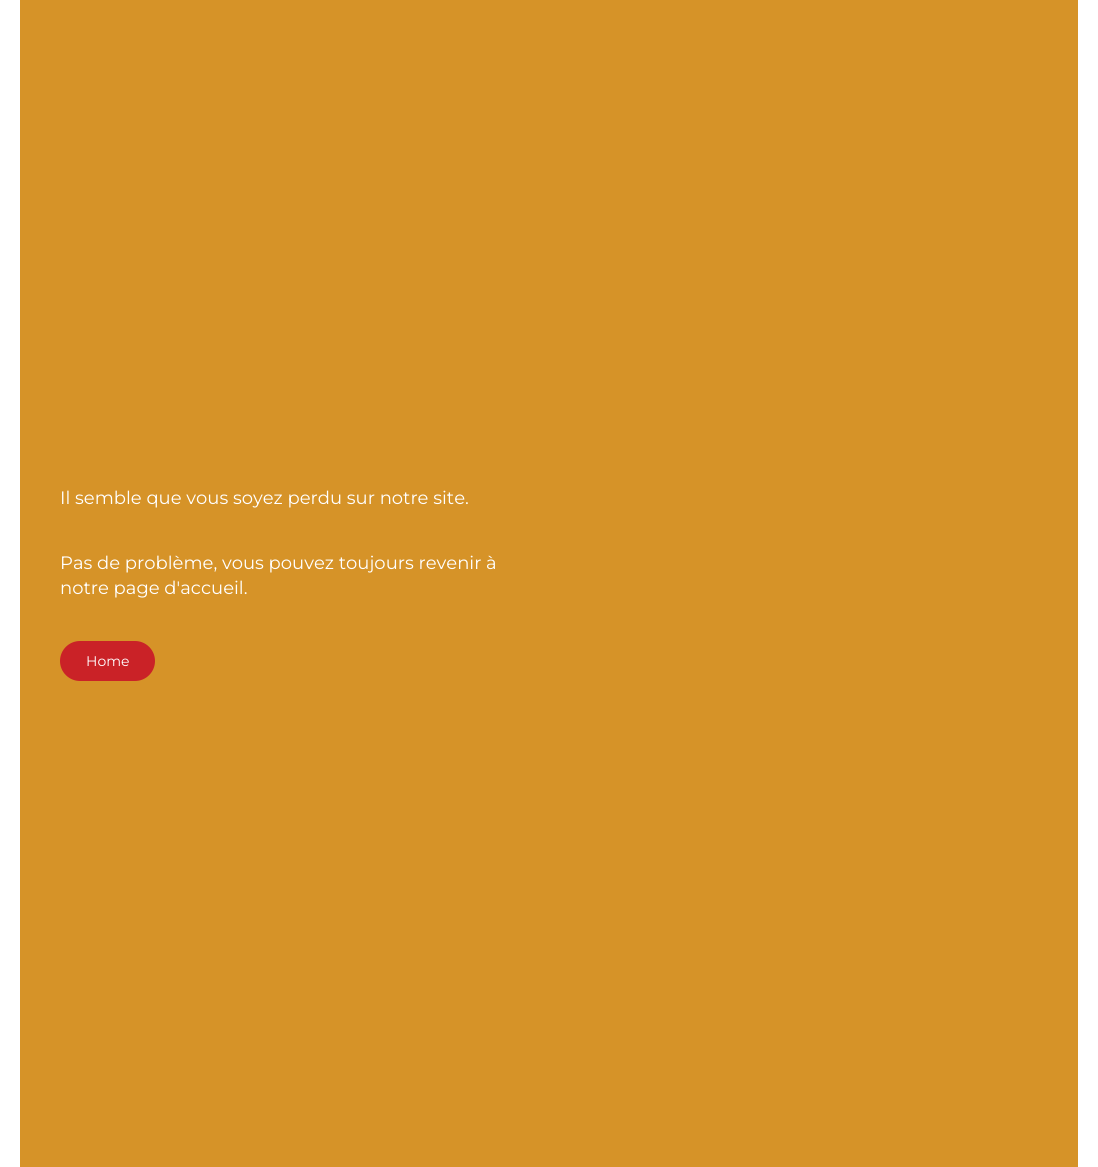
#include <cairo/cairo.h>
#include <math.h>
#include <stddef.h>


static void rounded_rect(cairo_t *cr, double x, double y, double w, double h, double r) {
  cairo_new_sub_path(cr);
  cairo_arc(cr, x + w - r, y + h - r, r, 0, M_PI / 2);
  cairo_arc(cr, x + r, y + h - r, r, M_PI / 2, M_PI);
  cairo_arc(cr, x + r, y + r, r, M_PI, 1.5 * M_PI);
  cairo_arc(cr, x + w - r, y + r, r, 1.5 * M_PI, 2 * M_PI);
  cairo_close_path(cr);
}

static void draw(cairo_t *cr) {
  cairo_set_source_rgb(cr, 1, 1, 1);
  cairo_paint(cr);
  cairo_set_source_rgb(cr, 214 / 255.0, 147 / 255.0, 40 / 255.0);
  cairo_rectangle(cr, 20, 0, 1058, 1167);
  cairo_fill(cr);
  cairo_set_source_rgb(cr, 202 / 255.0, 34 / 255.0, 39 / 255.0);
  rounded_rect(cr, 60, 641, 95, 40, 20);
  cairo_fill(cr);
  cairo_select_font_face(cr, "Montserrat Thin", CAIRO_FONT_SLANT_NORMAL, CAIRO_FONT_WEIGHT_NORMAL);
  cairo_set_font_size(cr, 18);
  cairo_set_source_rgb(cr, 1, 1, 1);
  cairo_move_to(cr, 60, 504);
  cairo_show_text(cr, "Il semble que vous soyez perdu sur notre site.");
  cairo_move_to(cr, 60, 569);
  cairo_show_text(cr, "Pas de problème, vous pouvez toujours revenir à");
  cairo_move_to(cr, 60, 594);
  cairo_show_text(cr, "notre page d'accueil.");
  cairo_set_font_size(cr, 14);
  cairo_move_to(cr, 86, 666);
  cairo_show_text(cr, "Home");
}

int main(void) {
  cairo_surface_t *surface = cairo_image_surface_create(CAIRO_FORMAT_RGB24, 1098, 1167);
  cairo_t *cr = cairo_create(surface);
  cairo_font_options_t *options = cairo_font_options_create();
  cairo_font_options_set_hint_metrics(options, CAIRO_HINT_METRICS_OFF);
  cairo_font_options_set_hint_style(options, CAIRO_HINT_STYLE_NONE);
  cairo_set_font_options(cr, options);
  cairo_set_miter_limit(cr, 4);
  draw(cr);
  cairo_surface_write_to_png(surface, "out.png");
  cairo_font_options_destroy(options);
  cairo_destroy(cr);
  cairo_surface_destroy(surface);
  return 0;
}
